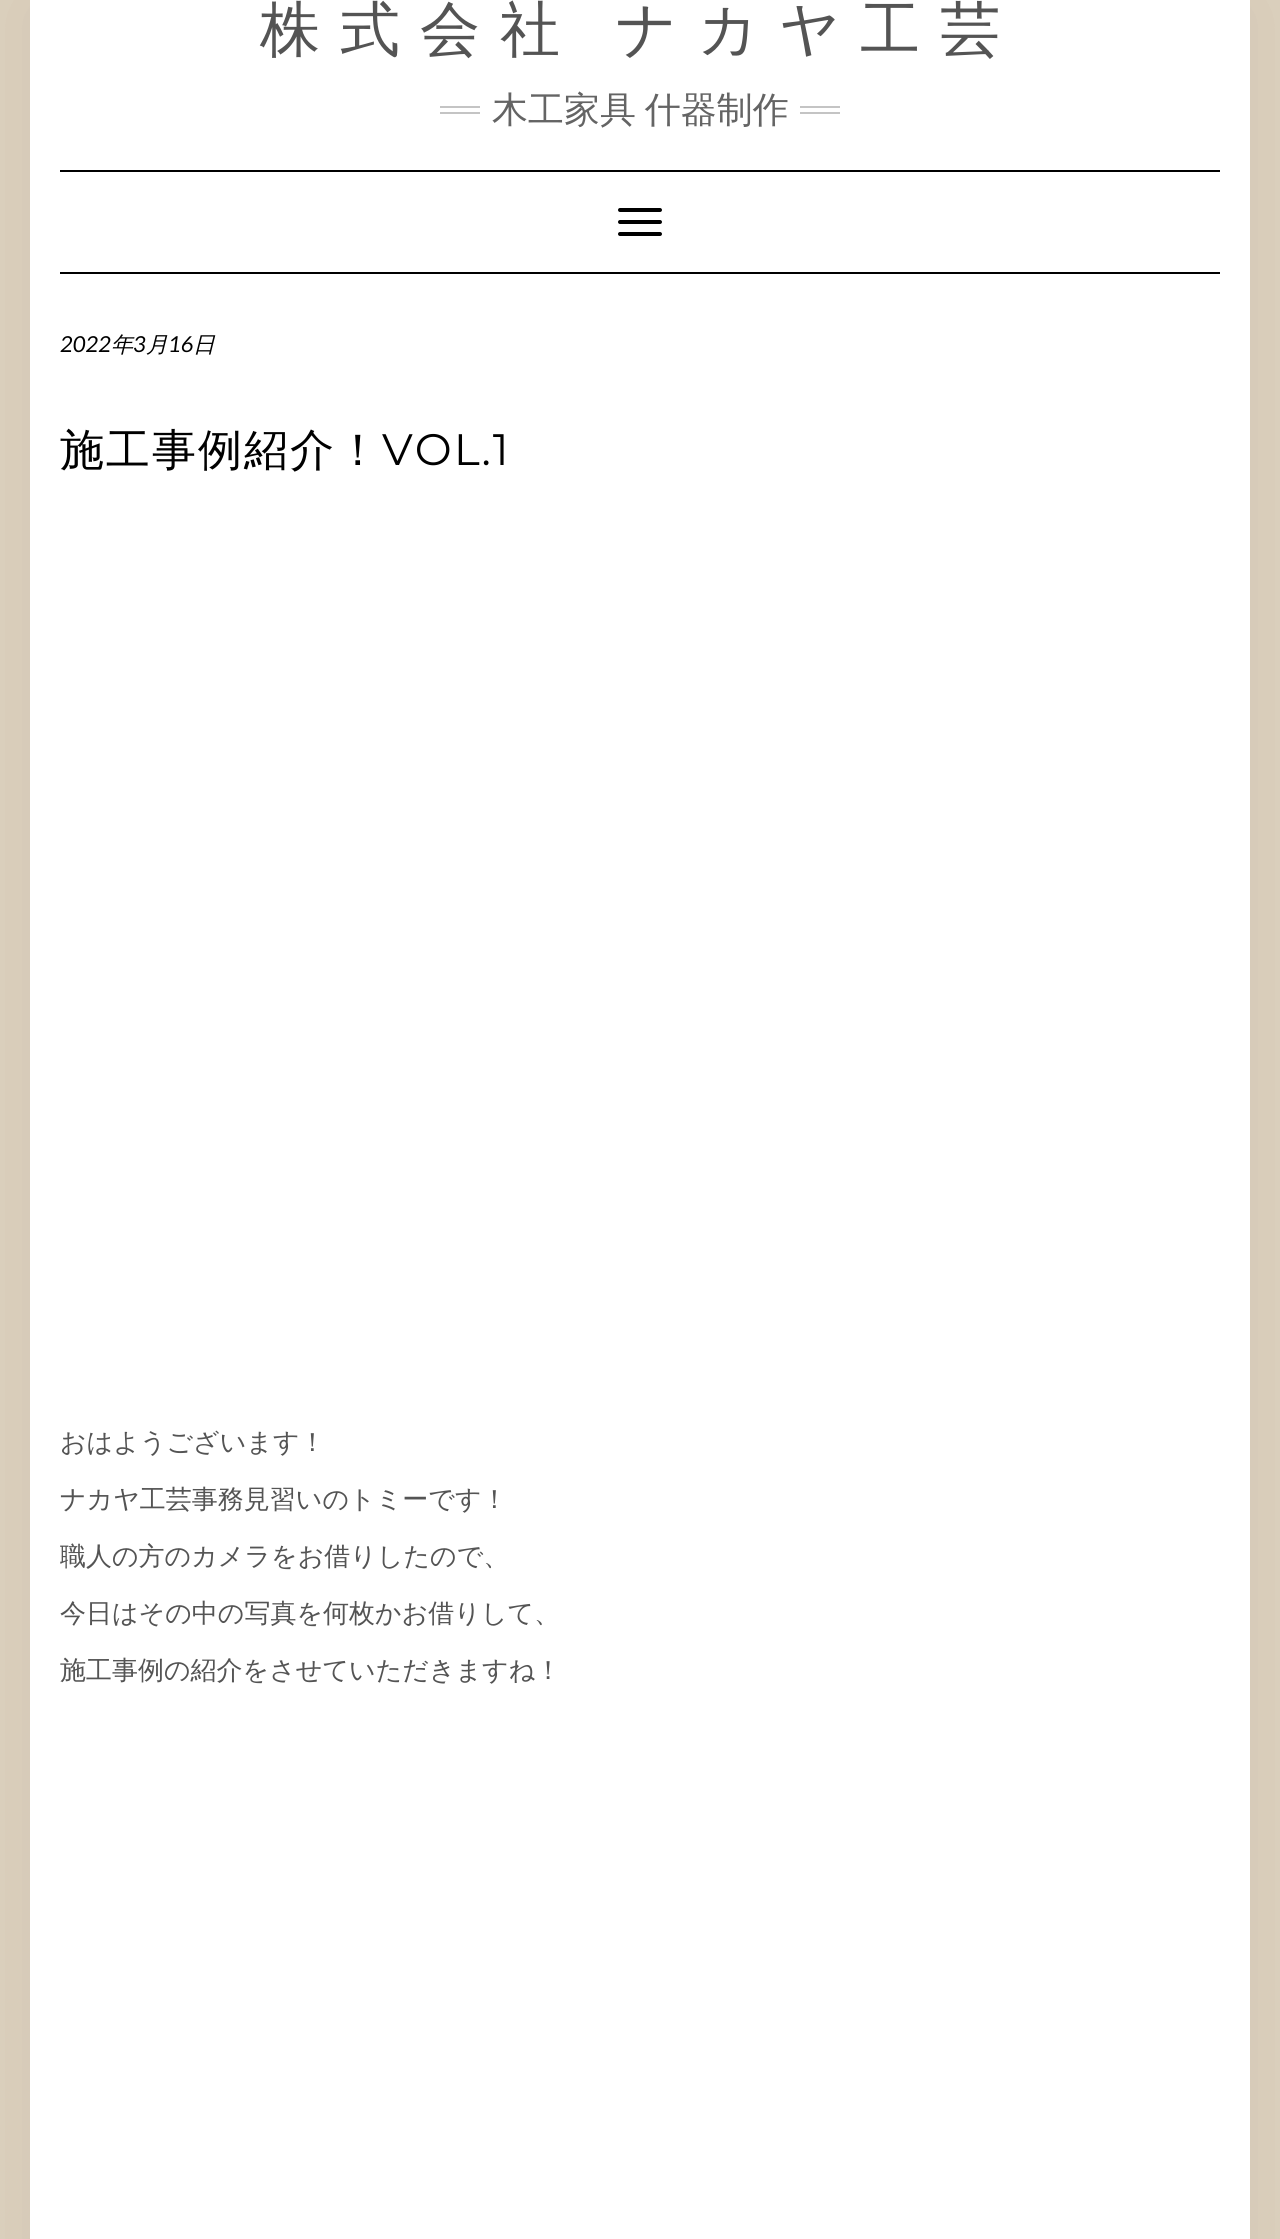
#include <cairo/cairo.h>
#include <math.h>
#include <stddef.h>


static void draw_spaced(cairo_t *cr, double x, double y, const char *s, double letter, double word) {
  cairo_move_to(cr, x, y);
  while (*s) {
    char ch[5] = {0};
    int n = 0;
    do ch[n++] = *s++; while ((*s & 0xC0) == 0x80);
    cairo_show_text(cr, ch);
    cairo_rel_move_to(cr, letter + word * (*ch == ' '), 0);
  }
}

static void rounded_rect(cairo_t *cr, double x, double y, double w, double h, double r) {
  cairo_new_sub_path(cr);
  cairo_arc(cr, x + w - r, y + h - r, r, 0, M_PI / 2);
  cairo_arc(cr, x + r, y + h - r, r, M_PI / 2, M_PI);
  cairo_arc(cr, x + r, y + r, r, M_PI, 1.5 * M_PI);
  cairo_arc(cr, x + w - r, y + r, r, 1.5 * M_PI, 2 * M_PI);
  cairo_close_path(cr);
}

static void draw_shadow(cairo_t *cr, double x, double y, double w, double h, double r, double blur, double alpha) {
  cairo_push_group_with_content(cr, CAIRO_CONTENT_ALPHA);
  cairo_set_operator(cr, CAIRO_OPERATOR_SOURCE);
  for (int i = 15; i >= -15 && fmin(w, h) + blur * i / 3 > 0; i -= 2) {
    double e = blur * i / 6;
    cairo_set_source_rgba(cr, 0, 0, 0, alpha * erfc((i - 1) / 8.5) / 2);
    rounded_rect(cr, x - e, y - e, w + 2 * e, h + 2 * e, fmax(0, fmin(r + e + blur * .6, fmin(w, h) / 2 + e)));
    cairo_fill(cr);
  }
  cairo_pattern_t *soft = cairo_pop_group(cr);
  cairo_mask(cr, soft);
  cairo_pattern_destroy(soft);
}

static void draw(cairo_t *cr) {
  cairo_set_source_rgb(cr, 221 / 255.0, 209 / 255.0, 190 / 255.0);
  cairo_paint(cr);
  cairo_set_source_rgb(cr, 0, 0, 0);
  draw_shadow(cr, 30, 0, 1220, 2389, 0, 50, 0.06);
  cairo_set_source_rgb(cr, 1, 1, 1);
  cairo_rectangle(cr, 30, 0, 1220, 2239);
  cairo_fill(cr);
  cairo_set_source_rgb(cr, 196 / 255.0, 196 / 255.0, 196 / 255.0);
  cairo_rectangle(cr, 440, 106, 40, 2);
  cairo_fill(cr);
  cairo_rectangle(cr, 440, 112, 40, 2);
  cairo_fill(cr);
  cairo_rectangle(cr, 800, 106, 40, 2);
  cairo_fill(cr);
  cairo_rectangle(cr, 800, 112, 40, 2);
  cairo_fill(cr);
  cairo_set_source_rgb(cr, 0, 0, 0);
  cairo_rectangle(cr, 60, 170, 1160, 2);
  cairo_fill(cr);
  cairo_rectangle(cr, 60, 272, 1160, 2);
  cairo_fill(cr);
  rounded_rect(cr, 618, 208, 44, 4, 2);
  cairo_fill(cr);
  rounded_rect(cr, 618, 220, 44, 4, 2);
  cairo_fill(cr);
  rounded_rect(cr, 618, 232, 44, 4, 2);
  cairo_fill(cr);
  cairo_select_font_face(cr, "WenQuanYi Zen Hei Medium", CAIRO_FONT_SLANT_NORMAL, CAIRO_FONT_WEIGHT_NORMAL);
  cairo_set_font_size(cr, 60);
  cairo_set_source_rgb(cr, 84 / 255.0, 84 / 255.0, 84 / 255.0);
  draw_spaced(cr, 260, 50, "株式会社 ナカヤ工芸", 20, -2);
  cairo_set_font_size(cr, 36);
  cairo_set_source_rgb(cr, 100 / 255.0, 100 / 255.0, 100 / 255.0);
  draw_spaced(cr, 492, 122, "木工家具 什器制作", 0, -2);
  cairo_select_font_face(cr, "Lato", CAIRO_FONT_SLANT_ITALIC, CAIRO_FONT_WEIGHT_NORMAL);
  cairo_set_font_size(cr, 22);
  cairo_set_source_rgb(cr, 0, 0, 0);
  cairo_move_to(cr, 60, 352);
  cairo_show_text(cr, "2022");
  cairo_select_font_face(cr, "WenQuanYi Zen Hei Medium", CAIRO_FONT_SLANT_ITALIC, CAIRO_FONT_WEIGHT_NORMAL);
  cairo_move_to(cr, 111, 352);
  cairo_show_text(cr, "年");
  cairo_select_font_face(cr, "Lato", CAIRO_FONT_SLANT_ITALIC, CAIRO_FONT_WEIGHT_NORMAL);
  cairo_move_to(cr, 133, 352);
  cairo_show_text(cr, "3");
  cairo_select_font_face(cr, "WenQuanYi Zen Hei Medium", CAIRO_FONT_SLANT_ITALIC, CAIRO_FONT_WEIGHT_NORMAL);
  cairo_move_to(cr, 146, 352);
  cairo_show_text(cr, "月");
  cairo_select_font_face(cr, "Lato", CAIRO_FONT_SLANT_ITALIC, CAIRO_FONT_WEIGHT_NORMAL);
  cairo_move_to(cr, 168, 352);
  cairo_show_text(cr, "16");
  cairo_select_font_face(cr, "WenQuanYi Zen Hei Medium", CAIRO_FONT_SLANT_ITALIC, CAIRO_FONT_WEIGHT_NORMAL);
  cairo_move_to(cr, 193, 352);
  cairo_show_text(cr, "日");
  cairo_select_font_face(cr, "WenQuanYi Zen Hei Medium", CAIRO_FONT_SLANT_NORMAL, CAIRO_FONT_WEIGHT_NORMAL);
  cairo_set_font_size(cr, 44);
  draw_spaced(cr, 60, 465, "施工事例紹介！", 2, 0);
  cairo_select_font_face(cr, "Montserrat", CAIRO_FONT_SLANT_NORMAL, CAIRO_FONT_WEIGHT_NORMAL);
  draw_spaced(cr, 382, 465, "VOL.1", 2, 0);
  cairo_select_font_face(cr, "WenQuanYi Zen Hei Medium", CAIRO_FONT_SLANT_NORMAL, CAIRO_FONT_WEIGHT_NORMAL);
  cairo_set_font_size(cr, 26);
  cairo_set_source_rgb(cr, 84 / 255.0, 84 / 255.0, 84 / 255.0);
  cairo_move_to(cr, 60, 1451);
  cairo_show_text(cr, "おはようございます！");
  cairo_move_to(cr, 60, 1508);
  cairo_show_text(cr, "ナカヤ工芸事務見習いのトミーです！");
  cairo_move_to(cr, 60, 1565);
  cairo_show_text(cr, "職人の方のカメラをお借りしたので、");
  cairo_move_to(cr, 60, 1622);
  cairo_show_text(cr, "今日はその中の写真を何枚かお借りして、");
  cairo_move_to(cr, 60, 1679);
  cairo_show_text(cr, "施工事例の紹介をさせていただきますね！");
}

int main(void) {
  cairo_surface_t *surface = cairo_image_surface_create(CAIRO_FORMAT_RGB24, 1280, 2239);
  cairo_t *cr = cairo_create(surface);
  cairo_font_options_t *options = cairo_font_options_create();
  cairo_font_options_set_hint_metrics(options, CAIRO_HINT_METRICS_OFF);
  cairo_font_options_set_hint_style(options, CAIRO_HINT_STYLE_NONE);
  cairo_set_font_options(cr, options);
  cairo_set_miter_limit(cr, 4);
  draw(cr);
  cairo_surface_write_to_png(surface, "out.png");
  cairo_font_options_destroy(options);
  cairo_destroy(cr);
  cairo_surface_destroy(surface);
  return 0;
}
